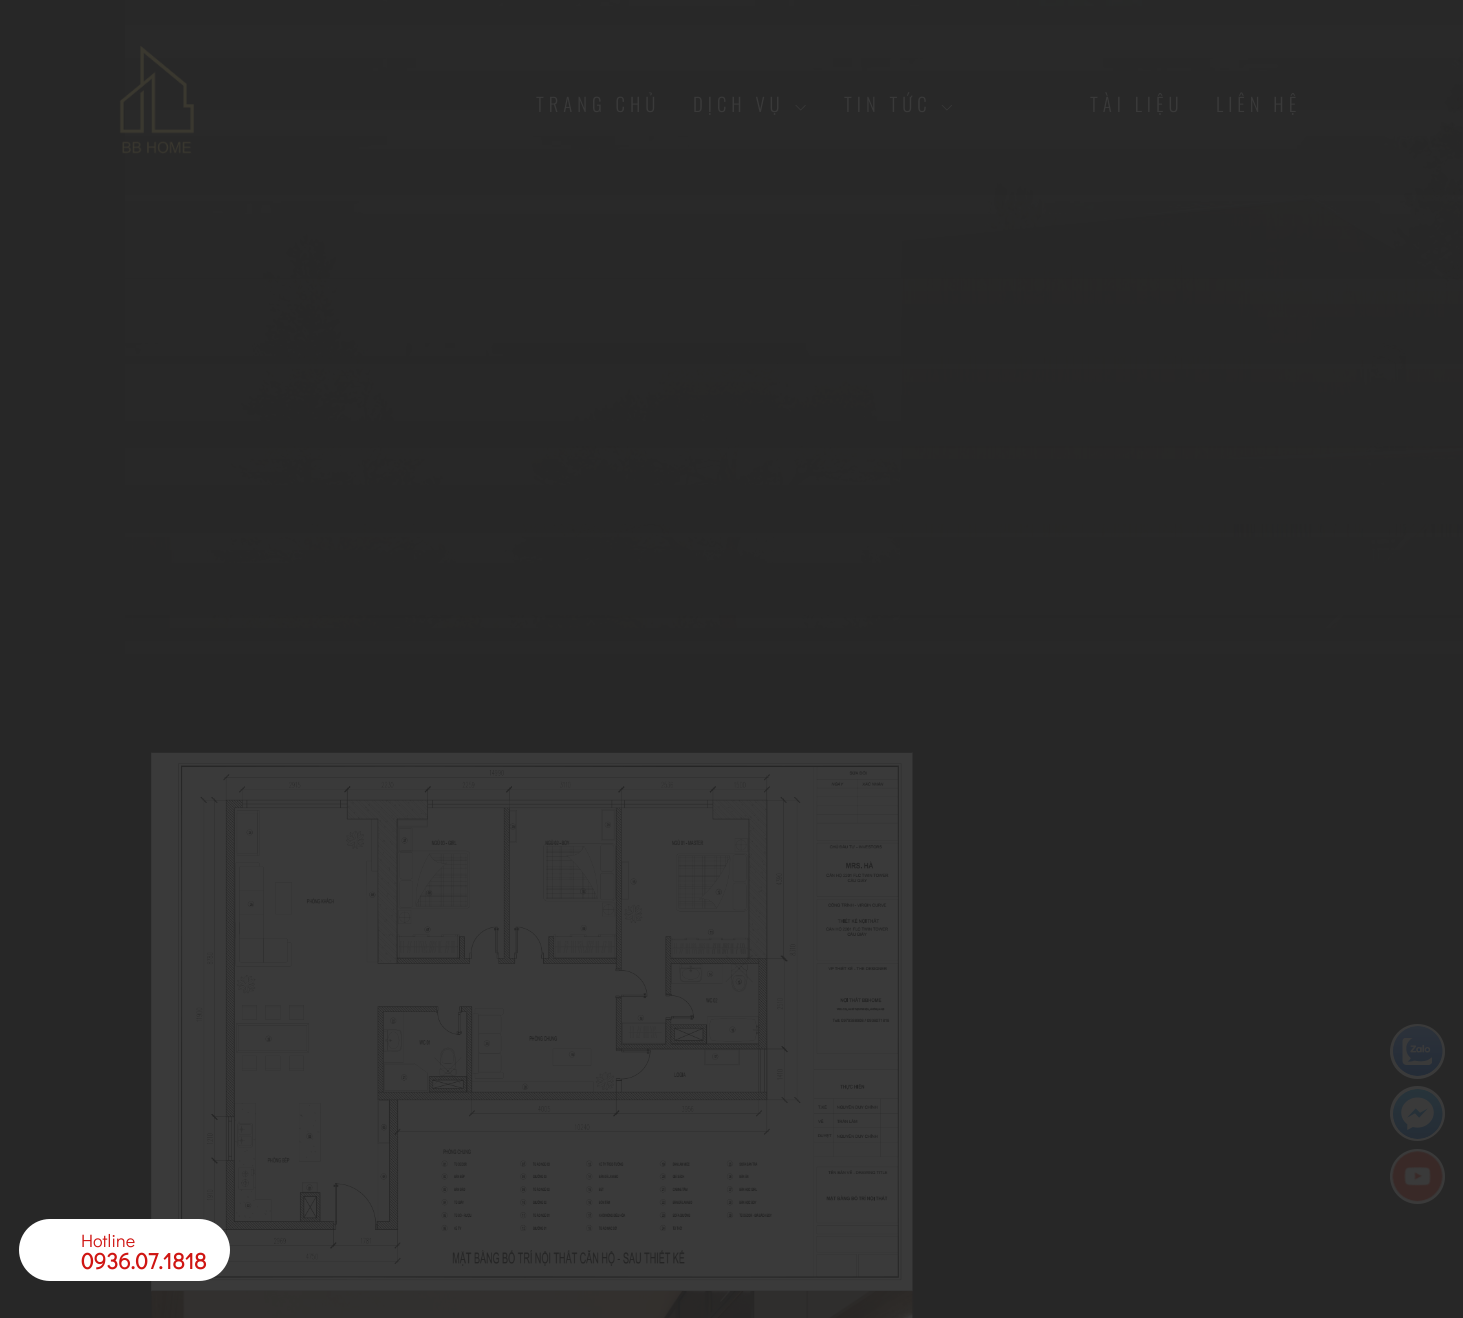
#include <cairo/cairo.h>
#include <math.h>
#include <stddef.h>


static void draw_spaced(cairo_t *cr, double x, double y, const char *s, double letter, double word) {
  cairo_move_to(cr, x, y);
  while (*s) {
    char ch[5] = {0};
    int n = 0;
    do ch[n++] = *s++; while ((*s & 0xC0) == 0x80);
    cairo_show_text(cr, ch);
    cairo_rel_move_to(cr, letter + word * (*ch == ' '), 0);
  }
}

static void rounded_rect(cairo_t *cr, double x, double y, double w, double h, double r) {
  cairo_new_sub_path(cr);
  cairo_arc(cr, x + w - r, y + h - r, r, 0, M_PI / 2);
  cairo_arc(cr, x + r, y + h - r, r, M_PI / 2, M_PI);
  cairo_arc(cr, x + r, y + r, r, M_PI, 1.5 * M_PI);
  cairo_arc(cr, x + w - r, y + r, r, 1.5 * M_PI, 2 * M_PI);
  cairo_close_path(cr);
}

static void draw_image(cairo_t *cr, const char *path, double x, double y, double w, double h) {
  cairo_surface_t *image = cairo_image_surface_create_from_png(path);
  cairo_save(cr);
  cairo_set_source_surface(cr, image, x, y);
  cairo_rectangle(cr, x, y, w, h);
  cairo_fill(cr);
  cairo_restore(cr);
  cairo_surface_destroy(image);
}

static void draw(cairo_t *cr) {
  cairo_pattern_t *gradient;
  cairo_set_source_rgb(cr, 1, 1, 1);
  cairo_paint(cr);
  cairo_set_source_rgb(cr, 39 / 255.0, 39 / 255.0, 39 / 255.0);
  cairo_rectangle(cr, 0, 660, 1463, 658);
  cairo_fill(cr);
  draw_image(cr, "images/1.png", 125, 0, 1338, 641);
  cairo_rectangle(cr, 0, 0, 125, 660);
  cairo_fill(cr);
  gradient = cairo_pattern_create_linear(732, 660, 732, 0);
  cairo_pattern_add_color_stop_rgba(gradient, 0, 39 / 255.0, 39 / 255.0, 39 / 255.0, 1);
  cairo_pattern_add_color_stop_rgba(gradient, 1, 39 / 255.0, 39 / 255.0, 39 / 255.0, 0.8);
  cairo_pattern_add_color_stop_rgba(gradient, 1, 39 / 255.0, 39 / 255.0, 39 / 255.0, 0.5);
  cairo_set_source(cr, gradient);
  cairo_pattern_destroy(gradient);
  cairo_rectangle(cr, 125, 0, 1338, 660);
  cairo_fill(cr);
  draw_image(cr, "images/2.png", 151, 752, 762, 540);
  draw_image(cr, "images/3.png", 151, 1291, 763, 27);
  draw_image(cr, "images/4.png", 119, 45, 75, 109);
  draw_image(cr, "images/5.png", 795, 104, 11, 7);
  draw_image(cr, "images/6.png", 941, 104, 11, 7);
  cairo_set_source_rgb(cr, 58 / 255.0, 58 / 255.0, 58 / 255.0);
  cairo_arc(cr, 1417.5, 1051.5, 27.5, 0, 2 * M_PI);
  cairo_fill(cr);
  draw_image(cr, "images/7.png", 1393, 1026, 50, 50);
  cairo_arc(cr, 1417.5, 1113.5, 27.5, 0, 2 * M_PI);
  cairo_fill(cr);
  draw_image(cr, "images/8.png", 1393, 1089, 50, 50);
  cairo_arc(cr, 1417.5, 1176.5, 27.5, 0, 2 * M_PI);
  cairo_fill(cr);
  draw_image(cr, "images/9.png", 1392, 1151, 51, 51);
  cairo_set_source_rgb(cr, 1, 1, 1);
  rounded_rect(cr, 19, 1219, 211, 62, 31);
  cairo_fill(cr);
  cairo_select_font_face(cr, "Oswald Light", CAIRO_FONT_SLANT_NORMAL, CAIRO_FONT_WEIGHT_NORMAL);
  cairo_set_font_size(cr, 18.75);
  cairo_set_source_rgb(cr, 58 / 255.0, 58 / 255.0, 58 / 255.0);
  draw_spaced(cr, 536, 112, "TRANG CHỦ", 5, 0);
  draw_spaced(cr, 693, 112, "DỊCH VỤ", 5, 0);
  draw_spaced(cr, 844, 112, "TIN TỨC", 5, 0);
  draw_spaced(cr, 1090, 112, "TÀI LIỆU", 5, 0);
  draw_spaced(cr, 1216, 112, "LIÊN HỆ", 5, 0);
  cairo_select_font_face(cr, "Didact Gothic", CAIRO_FONT_SLANT_NORMAL, CAIRO_FONT_WEIGHT_NORMAL);
  cairo_set_font_size(cr, 18);
  cairo_set_source_rgb(cr, 207 / 255.0, 21 / 255.0, 18 / 255.0);
  cairo_move_to(cr, 81, 1247);
  cairo_show_text(cr, "Hotline");
  cairo_select_font_face(cr, "Didact Gothic", CAIRO_FONT_SLANT_NORMAL, CAIRO_FONT_WEIGHT_BOLD);
  cairo_set_font_size(cr, 22.5);
  cairo_move_to(cr, 81, 1269);
  cairo_show_text(cr, "0936.07.1818");
}

int main(void) {
  cairo_surface_t *surface = cairo_image_surface_create(CAIRO_FORMAT_RGB24, 1463, 1318);
  cairo_t *cr = cairo_create(surface);
  cairo_font_options_t *options = cairo_font_options_create();
  cairo_font_options_set_hint_metrics(options, CAIRO_HINT_METRICS_OFF);
  cairo_font_options_set_hint_style(options, CAIRO_HINT_STYLE_NONE);
  cairo_set_font_options(cr, options);
  cairo_set_miter_limit(cr, 4);
  draw(cr);
  cairo_surface_write_to_png(surface, "out.png");
  cairo_font_options_destroy(options);
  cairo_destroy(cr);
  cairo_surface_destroy(surface);
  return 0;
}
